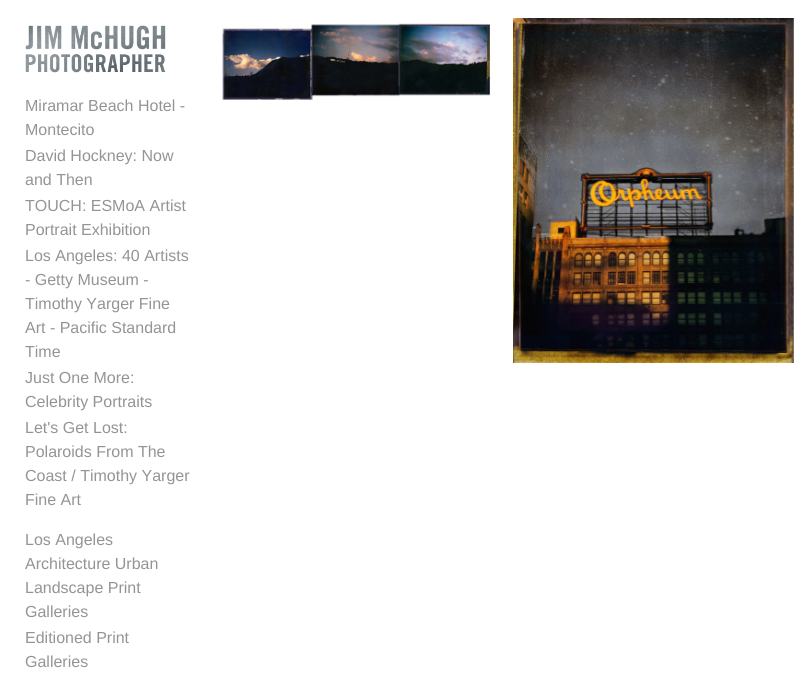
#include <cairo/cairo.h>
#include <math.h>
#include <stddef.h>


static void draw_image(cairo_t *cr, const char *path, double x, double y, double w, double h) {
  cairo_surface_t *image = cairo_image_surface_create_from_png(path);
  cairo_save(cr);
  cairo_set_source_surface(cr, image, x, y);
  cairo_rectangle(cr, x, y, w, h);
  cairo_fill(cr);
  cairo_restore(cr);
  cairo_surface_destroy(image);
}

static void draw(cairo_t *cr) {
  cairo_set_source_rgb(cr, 1, 1, 1);
  cairo_paint(cr);
  draw_image(cr, "images/1.png", 25, 25, 141, 48);
  draw_image(cr, "images/2.png", 222, 23, 270, 77);
  draw_image(cr, "images/3.png", 513, 18, 281, 345);
  cairo_select_font_face(cr, "Liberation Sans", CAIRO_FONT_SLANT_NORMAL, CAIRO_FONT_WEIGHT_NORMAL);
  cairo_set_font_size(cr, 16);
  cairo_set_source_rgb(cr, 148 / 255.0, 148 / 255.0, 148 / 255.0);
  cairo_move_to(cr, 25, 111);
  cairo_show_text(cr, "Miramar Beach Hotel -");
  cairo_move_to(cr, 25, 135);
  cairo_show_text(cr, "Montecito");
  cairo_move_to(cr, 25, 161);
  cairo_show_text(cr, "David Hockney: Now");
  cairo_move_to(cr, 25, 185);
  cairo_show_text(cr, "and Then");
  cairo_move_to(cr, 25, 211);
  cairo_show_text(cr, "TOUCH: ESMoA Artist");
  cairo_move_to(cr, 25, 235);
  cairo_show_text(cr, "Portrait Exhibition");
  cairo_move_to(cr, 25, 261);
  cairo_show_text(cr, "Los Angeles: 40 Artists");
  cairo_move_to(cr, 25, 285);
  cairo_show_text(cr, "- Getty Museum -");
  cairo_move_to(cr, 25, 309);
  cairo_show_text(cr, "Timothy Yarger Fine");
  cairo_move_to(cr, 25, 333);
  cairo_show_text(cr, "Art - Pacific Standard");
  cairo_move_to(cr, 25, 357);
  cairo_show_text(cr, "Time");
  cairo_move_to(cr, 25, 383);
  cairo_show_text(cr, "Just One More:");
  cairo_move_to(cr, 25, 407);
  cairo_show_text(cr, "Celebrity Portraits");
  cairo_move_to(cr, 25, 433);
  cairo_show_text(cr, "Let's Get Lost:");
  cairo_move_to(cr, 25, 457);
  cairo_show_text(cr, "Polaroids From The");
  cairo_move_to(cr, 25, 481);
  cairo_show_text(cr, "Coast / Timothy Yarger");
  cairo_move_to(cr, 25, 505);
  cairo_show_text(cr, "Fine Art");
  cairo_move_to(cr, 25, 545);
  cairo_show_text(cr, "Los Angeles");
  cairo_move_to(cr, 25, 569);
  cairo_show_text(cr, "Architecture Urban");
  cairo_move_to(cr, 25, 593);
  cairo_show_text(cr, "Landscape Print");
  cairo_move_to(cr, 25, 617);
  cairo_show_text(cr, "Galleries");
  cairo_move_to(cr, 25, 643);
  cairo_show_text(cr, "Editioned Print");
  cairo_move_to(cr, 25, 667);
  cairo_show_text(cr, "Galleries");
}

int main(void) {
  cairo_surface_t *surface = cairo_image_surface_create(CAIRO_FORMAT_RGB24, 810, 689);
  cairo_t *cr = cairo_create(surface);
  cairo_font_options_t *options = cairo_font_options_create();
  cairo_font_options_set_hint_metrics(options, CAIRO_HINT_METRICS_OFF);
  cairo_font_options_set_hint_style(options, CAIRO_HINT_STYLE_NONE);
  cairo_set_font_options(cr, options);
  cairo_set_miter_limit(cr, 4);
  draw(cr);
  cairo_surface_write_to_png(surface, "out.png");
  cairo_font_options_destroy(options);
  cairo_destroy(cr);
  cairo_surface_destroy(surface);
  return 0;
}
